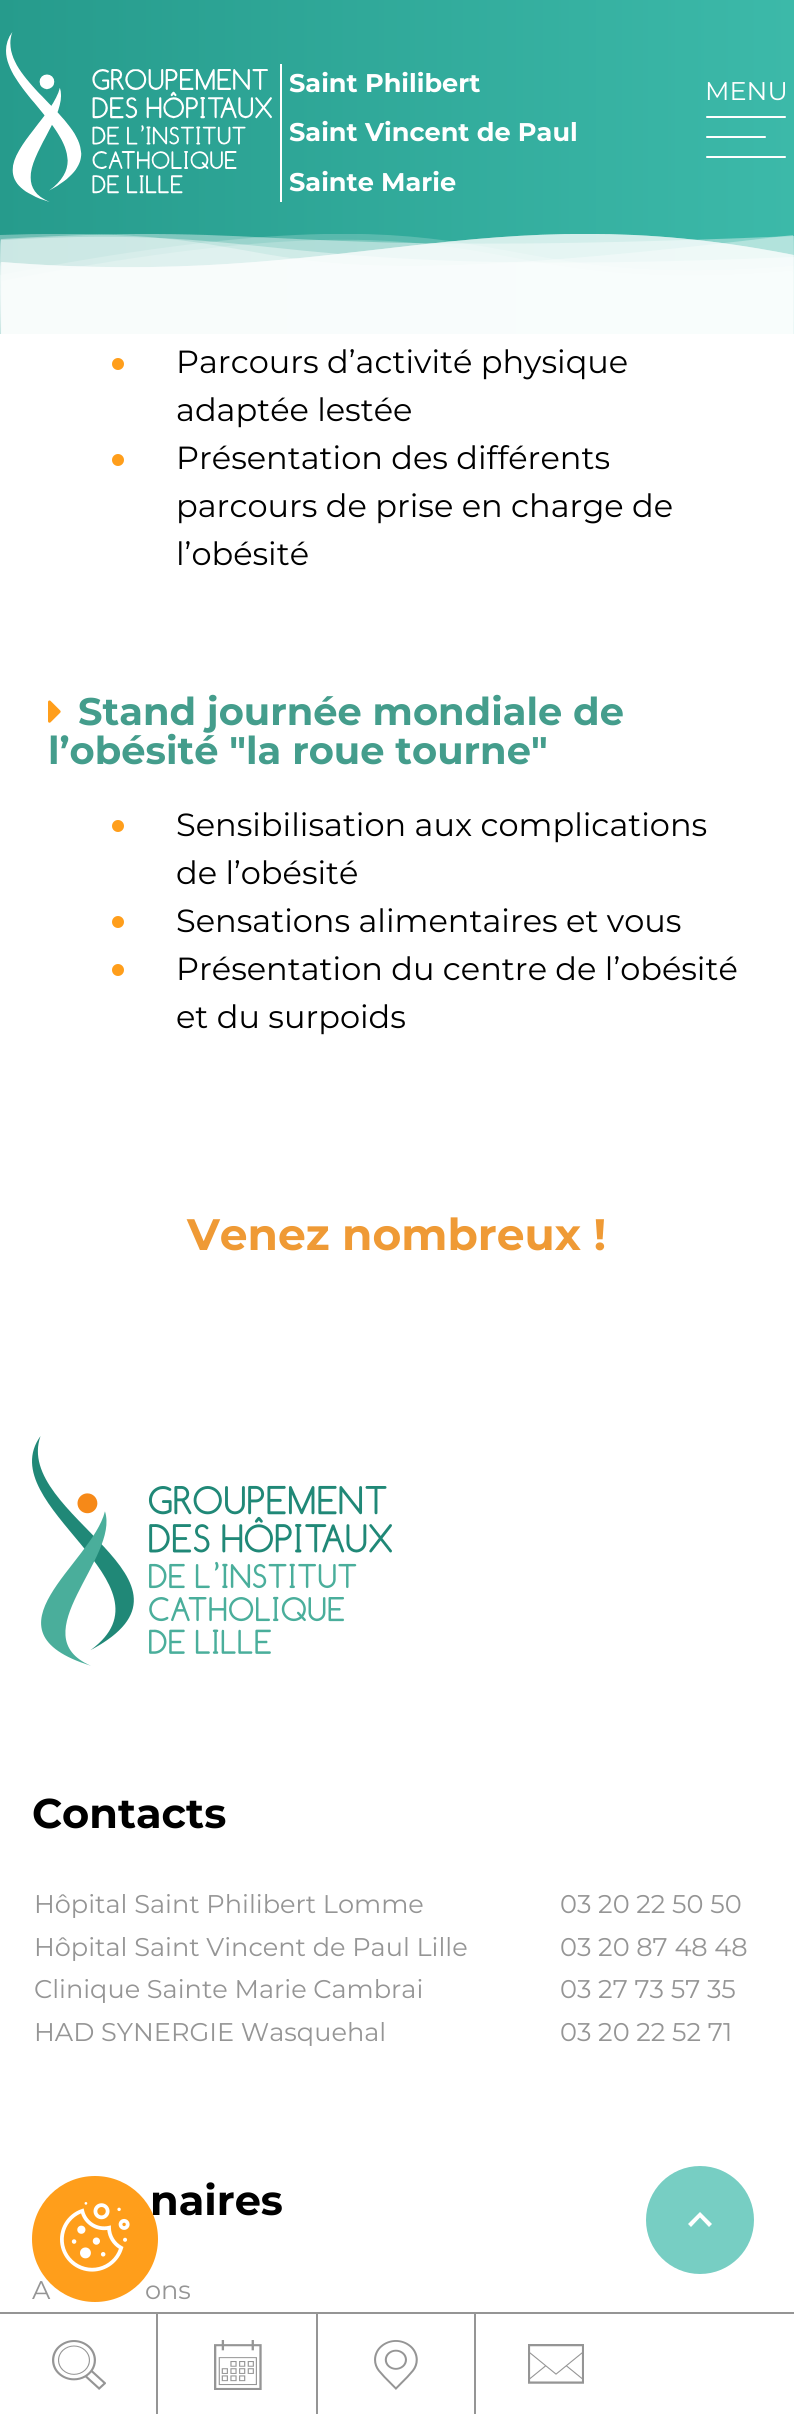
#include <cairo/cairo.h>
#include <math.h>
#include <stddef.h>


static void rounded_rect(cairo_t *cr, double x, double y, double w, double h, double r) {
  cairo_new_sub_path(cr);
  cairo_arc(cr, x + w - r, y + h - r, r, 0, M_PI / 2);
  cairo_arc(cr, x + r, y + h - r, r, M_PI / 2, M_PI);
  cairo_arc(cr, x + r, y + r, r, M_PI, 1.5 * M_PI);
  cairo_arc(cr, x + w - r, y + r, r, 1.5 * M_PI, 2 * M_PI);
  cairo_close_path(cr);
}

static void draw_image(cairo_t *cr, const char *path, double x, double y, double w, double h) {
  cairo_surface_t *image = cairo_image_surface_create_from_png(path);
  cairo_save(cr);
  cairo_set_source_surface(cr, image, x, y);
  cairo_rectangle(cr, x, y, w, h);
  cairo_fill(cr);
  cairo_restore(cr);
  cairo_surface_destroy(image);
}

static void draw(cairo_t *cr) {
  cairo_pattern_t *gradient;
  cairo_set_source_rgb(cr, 1, 1, 1);
  cairo_paint(cr);
  gradient = cairo_pattern_create_linear(0, 167, 794, 167);
  cairo_pattern_add_color_stop_rgba(gradient, 0, 38 / 255.0, 155 / 255.0, 140 / 255.0, 1);
  cairo_pattern_add_color_stop_rgba(gradient, 1, 60 / 255.0, 185 / 255.0, 169 / 255.0, 1);
  cairo_set_source(cr, gradient);
  cairo_pattern_destroy(gradient);
  cairo_rectangle(cr, 0, 0, 794, 334);
  cairo_fill(cr);
  draw_image(cr, "images/1.png", 6, 32, 266, 170);
  cairo_set_source_rgb(cr, 1, 1, 1);
  cairo_rectangle(cr, 280, 64, 2, 138);
  cairo_fill(cr);
  rounded_rect(cr, 706, 116, 80, 2, 1);
  cairo_fill(cr);
  rounded_rect(cr, 706, 136, 60, 2, 1);
  cairo_fill(cr);
  rounded_rect(cr, 706, 156, 80, 2, 1);
  cairo_fill(cr);
  cairo_save(cr);
  cairo_rectangle(cr, 0, 234, 794, 100);
  cairo_clip(cr);
  cairo_set_source_rgba(cr, 1, 1, 1, 0.19);
  cairo_new_path(cr);
  cairo_move_to(cr, 0, 235);
  cairo_curve_to(cr, 343, 223, 178, 310, 793, 235);
  cairo_curve_to(cr, 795, 236, 793, 369, 793, 369);
  cairo_line_to(cr, 0, 369);
  cairo_close_path(cr);
  cairo_fill(cr);
  cairo_new_path(cr);
  cairo_move_to(cr, 0, 235);
  cairo_curve_to(cr, 343, 223, 178, 310, 793, 235);
  cairo_curve_to(cr, 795, 236, 793, 369, 793, 369);
  cairo_line_to(cr, 0, 369);
  cairo_close_path(cr);
  cairo_fill(cr);
  cairo_set_source_rgba(cr, 1, 1, 1, 0.2);
  cairo_new_path(cr);
  cairo_move_to(cr, 0, 275);
  cairo_curve_to(cr, 526, 174, 446, 294, 793, 266);
  cairo_curve_to(cr, 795, 267, 793, 358, 793, 358);
  cairo_line_to(cr, 0, 358);
  cairo_close_path(cr);
  cairo_fill(cr);
  cairo_set_source_rgba(cr, 1, 1, 1, 0.4);
  cairo_new_path(cr);
  cairo_move_to(cr, 794, 255);
  cairo_curve_to(cr, 481, 193, 348, 290, 1, 262);
  cairo_curve_to(cr, -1, 263, 1, 363, 1, 363);
  cairo_line_to(cr, 794, 363);
  cairo_close_path(cr);
  cairo_fill(cr);
  cairo_new_path(cr);
  cairo_move_to(cr, 794, 255);
  cairo_curve_to(cr, 481, 193, 348, 290, 1, 262);
  cairo_curve_to(cr, -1, 263, 1, 363, 1, 363);
  cairo_line_to(cr, 794, 363);
  cairo_close_path(cr);
  cairo_fill(cr);
  cairo_new_path(cr);
  cairo_move_to(cr, 794, 236);
  cairo_curve_to(cr, 250, 259, 296, 221, 1, 239);
  cairo_curve_to(cr, -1, 240, 1, 342, 1, 342);
  cairo_line_to(cr, 794, 342);
  cairo_close_path(cr);
  cairo_fill(cr);
  cairo_set_source_rgba(cr, 1, 1, 1, 0.2);
  cairo_new_path(cr);
  cairo_move_to(cr, 1, 281);
  cairo_curve_to(cr, 526, 180, 446, 300, 792, 271);
  cairo_curve_to(cr, 794, 272, 792, 363, 792, 363);
  cairo_line_to(cr, 1, 363);
  cairo_close_path(cr);
  cairo_fill(cr);
  cairo_set_source_rgba(cr, 1, 1, 1, 0.4);
  cairo_new_path(cr);
  cairo_move_to(cr, 793, 255);
  cairo_curve_to(cr, 481, 193, 348, 290, 2, 262);
  cairo_curve_to(cr, 0, 263, 2, 363, 2, 363);
  cairo_line_to(cr, 793, 363);
  cairo_close_path(cr);
  cairo_fill(cr);
  cairo_new_path(cr);
  cairo_move_to(cr, 794, 257);
  cairo_curve_to(cr, 250, 280, 296, 223, 1, 240);
  cairo_curve_to(cr, -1, 241, 1, 363, 1, 363);
  cairo_line_to(cr, 794, 363);
  cairo_close_path(cr);
  cairo_fill(cr);
  cairo_restore(cr);
  cairo_set_source_rgb(cr, 1, 158 / 255.0, 27 / 255.0);
  cairo_arc(cr, 118, 364, 6, 0, 2 * M_PI);
  cairo_fill(cr);
  cairo_arc(cr, 118, 460, 6, 0, 2 * M_PI);
  cairo_fill(cr);
  draw_image(cr, "images/2.png", 48, 700, 13, 23);
  cairo_arc(cr, 118, 826, 6, 0, 2 * M_PI);
  cairo_fill(cr);
  cairo_arc(cr, 118, 922, 6, 0, 2 * M_PI);
  cairo_fill(cr);
  cairo_arc(cr, 118, 970, 6, 0, 2 * M_PI);
  cairo_fill(cr);
  draw_image(cr, "images/3.png", 32, 1436, 360, 230);
  cairo_set_source_rgb(cr, 119 / 255.0, 206 / 255.0, 195 / 255.0);
  cairo_arc(cr, 700, 2220, 54, 0, 2 * M_PI);
  cairo_fill(cr);
  cairo_set_source_rgb(cr, 1, 1, 1);
  cairo_new_path(cr);
  cairo_move_to(cr, 691, 2227);
  cairo_line_to(cr, 688, 2224);
  cairo_line_to(cr, 700, 2212);
  cairo_line_to(cr, 712, 2224);
  cairo_line_to(cr, 709, 2227);
  cairo_line_to(cr, 700, 2217.5);
  cairo_close_path(cr);
  cairo_fill(cr);
  cairo_set_source_rgb(cr, 149 / 255.0, 149 / 255.0, 149 / 255.0);
  cairo_rectangle(cr, 0, 2312, 794, 2);
  cairo_fill(cr);
  cairo_rectangle(cr, 156, 2314, 2, 100);
  cairo_fill(cr);
  draw_image(cr, "images/5.png", 52, 2340, 54, 50);
  cairo_rectangle(cr, 316, 2314, 2, 100);
  cairo_fill(cr);
  draw_image(cr, "images/6.png", 214, 2340, 48, 50);
  cairo_rectangle(cr, 474, 2314, 2, 100);
  cairo_fill(cr);
  draw_image(cr, "images/7.png", 374, 2340, 44, 50);
  draw_image(cr, "images/8.png", 528, 2344, 56, 40);
  cairo_select_font_face(cr, "Montserrat", CAIRO_FONT_SLANT_NORMAL, CAIRO_FONT_WEIGHT_BOLD);
  cairo_set_font_size(cr, 25.6);
  cairo_set_source_rgb(cr, 1, 1, 1);
  cairo_move_to(cr, 289, 92);
  cairo_show_text(cr, "Saint Philibert");
  cairo_move_to(cr, 289, 141);
  cairo_show_text(cr, "Saint Vincent de Paul");
  cairo_move_to(cr, 289, 191);
  cairo_show_text(cr, "Sainte Marie");
  cairo_select_font_face(cr, "Montserrat", CAIRO_FONT_SLANT_NORMAL, CAIRO_FONT_WEIGHT_NORMAL);
  cairo_move_to(cr, 705, 100);
  cairo_show_text(cr, "MENU");
  cairo_set_font_size(cr, 32);
  cairo_set_source_rgb(cr, 0, 0, 0);
  cairo_move_to(cr, 176, 373);
  cairo_show_text(cr, "Parcours d’activité physique");
  cairo_move_to(cr, 176, 421);
  cairo_show_text(cr, "adaptée lestée");
  cairo_move_to(cr, 176, 469);
  cairo_show_text(cr, "Présentation des différents");
  cairo_move_to(cr, 176, 517);
  cairo_show_text(cr, "parcours de prise en charge de");
  cairo_move_to(cr, 176, 565);
  cairo_show_text(cr, "l’obésité");
  cairo_select_font_face(cr, "Montserrat", CAIRO_FONT_SLANT_NORMAL, CAIRO_FONT_WEIGHT_BOLD);
  cairo_set_font_size(cr, 38.4);
  cairo_set_source_rgb(cr, 68 / 255.0, 157 / 255.0, 140 / 255.0);
  cairo_move_to(cr, 78, 725);
  cairo_show_text(cr, "Stand journée mondiale de");
  cairo_move_to(cr, 48, 764);
  cairo_show_text(cr, "l’obésité \"la roue tourne\"");
  cairo_select_font_face(cr, "Montserrat", CAIRO_FONT_SLANT_NORMAL, CAIRO_FONT_WEIGHT_NORMAL);
  cairo_set_font_size(cr, 32);
  cairo_set_source_rgb(cr, 0, 0, 0);
  cairo_move_to(cr, 176, 836);
  cairo_show_text(cr, "Sensibilisation aux complications");
  cairo_move_to(cr, 176, 884);
  cairo_show_text(cr, "de l’obésité");
  cairo_move_to(cr, 176, 932);
  cairo_show_text(cr, "Sensations alimentaires et vous");
  cairo_move_to(cr, 176, 980);
  cairo_show_text(cr, "Présentation du centre de l’obésité");
  cairo_move_to(cr, 176, 1028);
  cairo_show_text(cr, "et du surpoids");
  cairo_select_font_face(cr, "Montserrat", CAIRO_FONT_SLANT_NORMAL, CAIRO_FONT_WEIGHT_BOLD);
  cairo_set_font_size(cr, 44);
  cairo_set_source_rgb(cr, 239 / 255.0, 154 / 255.0, 53 / 255.0);
  cairo_move_to(cr, 187, 1250);
  cairo_show_text(cr, "Venez nombreux !");
  cairo_set_font_size(cr, 41.5);
  cairo_set_source_rgb(cr, 0, 0, 0);
  cairo_move_to(cr, 32, 1828);
  cairo_show_text(cr, "Contacts");
  cairo_select_font_face(cr, "Montserrat", CAIRO_FONT_SLANT_NORMAL, CAIRO_FONT_WEIGHT_NORMAL);
  cairo_set_font_size(cr, 25.6);
  cairo_set_source_rgb(cr, 149 / 255.0, 149 / 255.0, 149 / 255.0);
  cairo_move_to(cr, 34, 1913);
  cairo_show_text(cr, "Hôpital Saint Philibert Lomme");
  cairo_move_to(cr, 560, 1913);
  cairo_show_text(cr, "03 20 22 50 50");
  cairo_move_to(cr, 34, 1956);
  cairo_show_text(cr, "Hôpital Saint Vincent de Paul Lille");
  cairo_move_to(cr, 560, 1956);
  cairo_show_text(cr, "03 20 87 48 48");
  cairo_move_to(cr, 34, 1998);
  cairo_show_text(cr, "Clinique Sainte Marie Cambrai");
  cairo_move_to(cr, 560, 1998);
  cairo_show_text(cr, "03 27 73 57 35");
  cairo_move_to(cr, 34, 2041);
  cairo_show_text(cr, "HAD SYNERGIE Wasquehal");
  cairo_move_to(cr, 560, 2041);
  cairo_show_text(cr, "03 20 22 52 71");
  cairo_select_font_face(cr, "Montserrat", CAIRO_FONT_SLANT_NORMAL, CAIRO_FONT_WEIGHT_BOLD);
  cairo_set_font_size(cr, 41.5);
  cairo_set_source_rgb(cr, 0, 0, 0);
  cairo_move_to(cr, 150, 2215);
  cairo_show_text(cr, "naires");
  cairo_select_font_face(cr, "Montserrat", CAIRO_FONT_SLANT_NORMAL, CAIRO_FONT_WEIGHT_NORMAL);
  cairo_set_font_size(cr, 25.6);
  cairo_set_source_rgb(cr, 149 / 255.0, 149 / 255.0, 149 / 255.0);
  cairo_move_to(cr, 32, 2299);
  cairo_show_text(cr, "A");
  cairo_move_to(cr, 145, 2299);
  cairo_show_text(cr, "ons");
  cairo_set_source_rgb(cr, 1, 158 / 255.0, 27 / 255.0);
  cairo_new_path(cr);
  cairo_arc(cr, 95, 2239, 63, 0, 2 * M_PI);
  cairo_fill(cr);
  draw_image(cr, "images/4.png", 60, 2202, 70, 70);
}

int main(void) {
  cairo_surface_t *surface = cairo_image_surface_create(CAIRO_FORMAT_RGB24, 794, 2414);
  cairo_t *cr = cairo_create(surface);
  cairo_font_options_t *options = cairo_font_options_create();
  cairo_font_options_set_hint_metrics(options, CAIRO_HINT_METRICS_OFF);
  cairo_font_options_set_hint_style(options, CAIRO_HINT_STYLE_NONE);
  cairo_set_font_options(cr, options);
  cairo_set_miter_limit(cr, 4);
  draw(cr);
  cairo_surface_write_to_png(surface, "out.png");
  cairo_font_options_destroy(options);
  cairo_destroy(cr);
  cairo_surface_destroy(surface);
  return 0;
}
